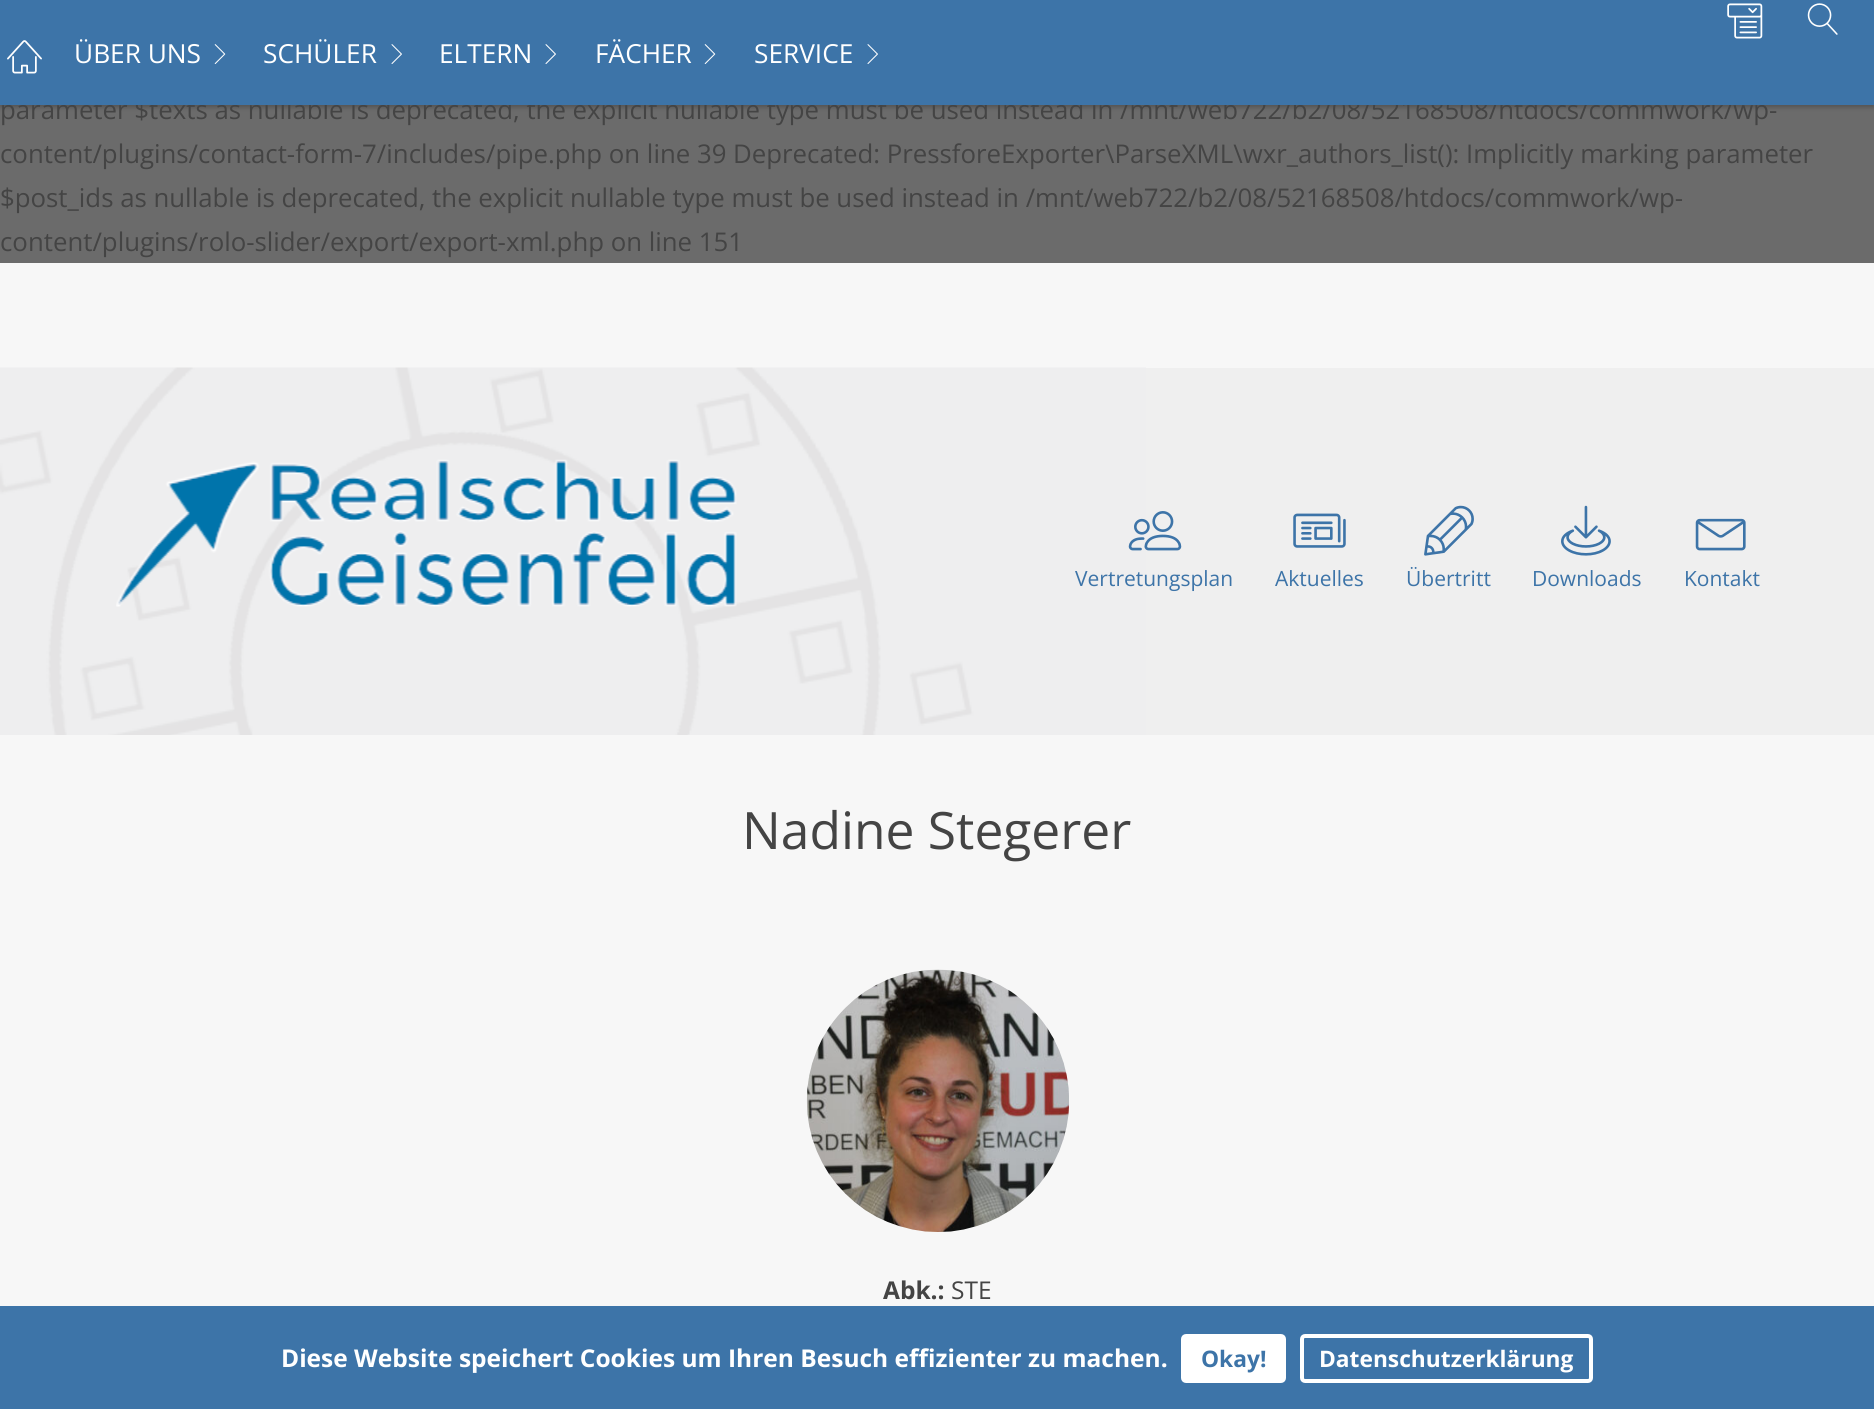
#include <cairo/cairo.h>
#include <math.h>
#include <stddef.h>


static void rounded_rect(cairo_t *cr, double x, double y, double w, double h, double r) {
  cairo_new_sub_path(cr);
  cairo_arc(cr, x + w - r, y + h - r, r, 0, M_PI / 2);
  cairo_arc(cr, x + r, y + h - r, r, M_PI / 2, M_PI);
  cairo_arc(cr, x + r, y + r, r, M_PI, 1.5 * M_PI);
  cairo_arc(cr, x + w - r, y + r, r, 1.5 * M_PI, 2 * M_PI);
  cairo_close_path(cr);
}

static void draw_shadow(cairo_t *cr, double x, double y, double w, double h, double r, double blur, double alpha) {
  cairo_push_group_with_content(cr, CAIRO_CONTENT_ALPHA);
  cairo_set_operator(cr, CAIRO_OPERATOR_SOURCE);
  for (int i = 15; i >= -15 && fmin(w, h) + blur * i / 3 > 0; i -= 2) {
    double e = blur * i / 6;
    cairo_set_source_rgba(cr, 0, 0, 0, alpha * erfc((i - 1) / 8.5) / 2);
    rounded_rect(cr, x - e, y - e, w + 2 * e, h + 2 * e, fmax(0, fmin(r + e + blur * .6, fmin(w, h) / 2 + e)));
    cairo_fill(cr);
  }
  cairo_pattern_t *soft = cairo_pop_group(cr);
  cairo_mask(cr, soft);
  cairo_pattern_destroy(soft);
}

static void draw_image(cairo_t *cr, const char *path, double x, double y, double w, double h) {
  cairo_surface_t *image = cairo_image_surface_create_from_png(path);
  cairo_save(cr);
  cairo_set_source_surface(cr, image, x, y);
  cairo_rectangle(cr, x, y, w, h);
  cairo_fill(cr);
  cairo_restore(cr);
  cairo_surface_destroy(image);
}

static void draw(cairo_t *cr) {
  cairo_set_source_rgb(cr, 107 / 255.0, 107 / 255.0, 107 / 255.0);
  cairo_paint(cr);
  cairo_set_source_rgb(cr, 247 / 255.0, 247 / 255.0, 247 / 255.0);
  cairo_rectangle(cr, 0, 263, 1874, 1043);
  cairo_fill(cr);
  cairo_set_source_rgb(cr, 0, 0, 0);
  draw_shadow(cr, 0, 2, 1874, 105, 0, 2.5, 0.25);
  cairo_set_source_rgb(cr, 239 / 255.0, 239 / 255.0, 239 / 255.0);
  cairo_rectangle(cr, 1146, 368, 728, 367);
  cairo_fill(cr);
  draw_image(cr, "images/6.png", 0, 367, 1146, 368);
  draw_image(cr, "images/7.png", 116, 459, 621, 148);
  draw_image(cr, "images/8.png", 1128, 511, 54, 40);
  draw_image(cr, "images/9.png", 1293, 513, 53, 35);
  draw_image(cr, "images/10.png", 1424, 505, 50, 51);
  draw_image(cr, "images/11.png", 1561, 505, 50, 51);
  draw_image(cr, "images/12.png", 1695, 518, 51, 33);
  draw_image(cr, "images/13.png", 806, 969, 263, 263);
  cairo_set_source_rgb(cr, 61 / 255.0, 116 / 255.0, 168 / 255.0);
  cairo_rectangle(cr, 0, 1306, 1874, 103);
  cairo_fill(cr);
  cairo_set_source_rgb(cr, 1, 1, 1);
  rounded_rect(cr, 1183, 1336, 101, 45, 3);
  cairo_fill_preserve(cr);
  cairo_set_line_width(cr, 4);
  cairo_stroke(cr);
  rounded_rect(cr, 1302, 1336, 289, 45, 3);
  cairo_stroke(cr);
  cairo_select_font_face(cr, "Open Sans", CAIRO_FONT_SLANT_NORMAL, CAIRO_FONT_WEIGHT_NORMAL);
  cairo_set_font_size(cr, 21);
  cairo_set_source_rgb(cr, 61 / 255.0, 116 / 255.0, 168 / 255.0);
  cairo_move_to(cr, 1075, 586);
  cairo_show_text(cr, "Vertretungsplan");
  cairo_move_to(cr, 1275, 586);
  cairo_show_text(cr, "Aktuelles");
  cairo_move_to(cr, 1406, 586);
  cairo_show_text(cr, "Übertritt");
  cairo_move_to(cr, 1532, 586);
  cairo_show_text(cr, "Downloads");
  cairo_move_to(cr, 1684, 586);
  cairo_show_text(cr, "Kontakt");
  cairo_select_font_face(cr, "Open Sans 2", CAIRO_FONT_SLANT_NORMAL, CAIRO_FONT_WEIGHT_NORMAL);
  cairo_set_font_size(cr, 51.5);
  cairo_set_source_rgb(cr, 68 / 255.0, 68 / 255.0, 68 / 255.0);
  cairo_move_to(cr, 742, 849);
  cairo_show_text(cr, "Nadine Stegerer");
  cairo_select_font_face(cr, "Open Sans", CAIRO_FONT_SLANT_NORMAL, CAIRO_FONT_WEIGHT_BOLD);
  cairo_set_font_size(cr, 24.5);
  cairo_move_to(cr, 883, 1299);
  cairo_show_text(cr, "Abk.:");
  cairo_select_font_face(cr, "Open Sans", CAIRO_FONT_SLANT_NORMAL, CAIRO_FONT_WEIGHT_NORMAL);
  cairo_move_to(cr, 951, 1299);
  cairo_show_text(cr, "STE");
  cairo_set_font_size(cr, 25.8);
  cairo_move_to(cr, 0, 119);
  cairo_show_text(cr, "parameter $texts as nullable is deprecated, the explicit nullable type must be used instead in /mnt/web722/b2/08/52168508/htdocs/commwork/wp-");
  cairo_set_source_rgb(cr, 61 / 255.0, 116 / 255.0, 168 / 255.0);
  cairo_rectangle(cr, 0, 0, 1874, 105);
  cairo_fill(cr);
  draw_image(cr, "images/1.png", 1807, 3, 31, 32);
  draw_image(cr, "images/2.png", 1727, 3, 36, 36);
  draw_image(cr, "images/3.png", 7, 40, 35, 34);
  draw_image(cr, "images/5.png", 867, 44, 11, 20);
  cairo_set_font_size(cr, 26.25);
  cairo_set_source_rgb(cr, 1, 1, 1);
  cairo_move_to(cr, 754, 63);
  cairo_show_text(cr, "SERVICE");
  draw_image(cr, "images/4.png", 704, 44, 12, 20);
  cairo_move_to(cr, 595, 63);
  cairo_show_text(cr, "FÄCHER");
  draw_image(cr, "images/5.png", 545, 44, 11, 20);
  cairo_move_to(cr, 439, 63);
  cairo_show_text(cr, "ELTERN");
  draw_image(cr, "images/5.png", 391, 44, 11, 20);
  cairo_move_to(cr, 263, 63);
  cairo_show_text(cr, "SCHÜLER");
  draw_image(cr, "images/4.png", 214, 44, 12, 20);
  cairo_move_to(cr, 74, 63);
  cairo_show_text(cr, "ÜBER UNS");
  cairo_set_font_size(cr, 25.8);
  cairo_set_source_rgb(cr, 68 / 255.0, 68 / 255.0, 68 / 255.0);
  cairo_move_to(cr, 0, 163);
  cairo_show_text(cr, "content/plugins/contact-form-7/includes/pipe.php on line 39");
  cairo_move_to(cr, 733, 163);
  cairo_show_text(cr, "Deprecated: PressforeExporter\\ParseXML\\wxr_authors_list(): Implicitly marking parameter");
  cairo_move_to(cr, 0, 207);
  cairo_show_text(cr, "$post_ids as nullable is deprecated, the explicit nullable type must be used instead in /mnt/web722/b2/08/52168508/htdocs/commwork/wp-");
  cairo_move_to(cr, 0, 251);
  cairo_show_text(cr, "content/plugins/rolo-slider/export/export-xml.php on line 151");
  cairo_select_font_face(cr, "Open Sans", CAIRO_FONT_SLANT_NORMAL, CAIRO_FONT_WEIGHT_BOLD);
  cairo_set_font_size(cr, 24.5);
  cairo_set_source_rgb(cr, 1, 1, 1);
  cairo_move_to(cr, 281, 1367);
  cairo_show_text(cr, "Diese Website speichert Cookies um Ihren Besuch effizienter zu machen.");
  cairo_set_font_size(cr, 22.75);
  cairo_set_source_rgb(cr, 61 / 255.0, 116 / 255.0, 168 / 255.0);
  cairo_move_to(cr, 1201, 1367);
  cairo_show_text(cr, "Okay!");
  cairo_set_source_rgb(cr, 1, 1, 1);
  cairo_move_to(cr, 1319, 1367);
  cairo_show_text(cr, "Datenschutzerklärung");
}

int main(void) {
  cairo_surface_t *surface = cairo_image_surface_create(CAIRO_FORMAT_RGB24, 1874, 1409);
  cairo_t *cr = cairo_create(surface);
  cairo_font_options_t *options = cairo_font_options_create();
  cairo_font_options_set_hint_metrics(options, CAIRO_HINT_METRICS_OFF);
  cairo_font_options_set_hint_style(options, CAIRO_HINT_STYLE_NONE);
  cairo_set_font_options(cr, options);
  cairo_set_miter_limit(cr, 4);
  draw(cr);
  cairo_surface_write_to_png(surface, "out.png");
  cairo_font_options_destroy(options);
  cairo_destroy(cr);
  cairo_surface_destroy(surface);
  return 0;
}
